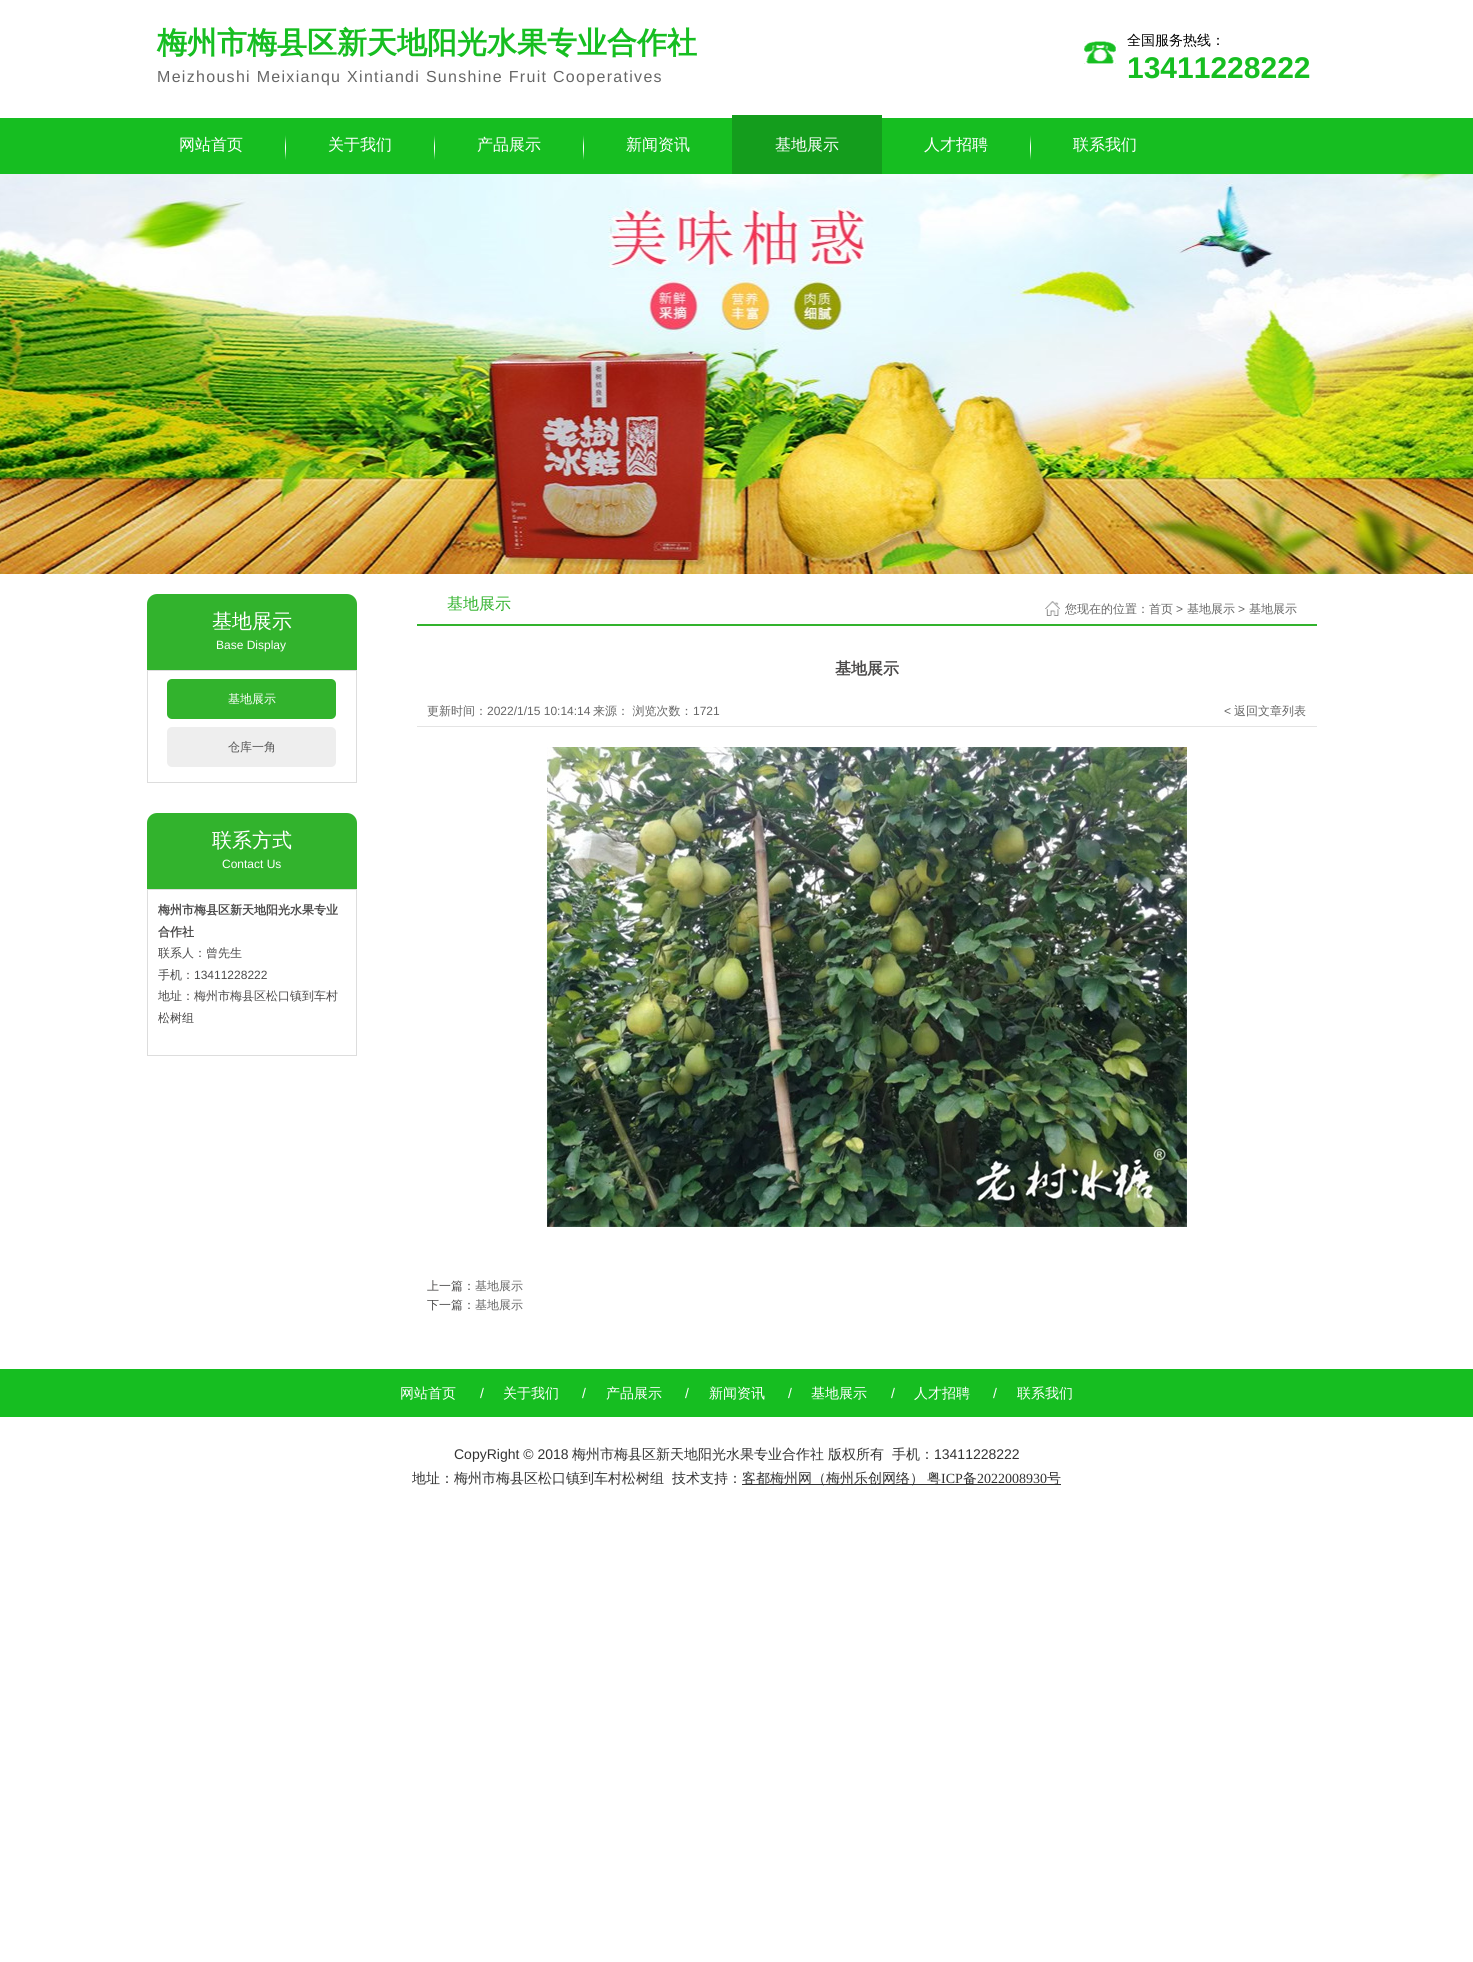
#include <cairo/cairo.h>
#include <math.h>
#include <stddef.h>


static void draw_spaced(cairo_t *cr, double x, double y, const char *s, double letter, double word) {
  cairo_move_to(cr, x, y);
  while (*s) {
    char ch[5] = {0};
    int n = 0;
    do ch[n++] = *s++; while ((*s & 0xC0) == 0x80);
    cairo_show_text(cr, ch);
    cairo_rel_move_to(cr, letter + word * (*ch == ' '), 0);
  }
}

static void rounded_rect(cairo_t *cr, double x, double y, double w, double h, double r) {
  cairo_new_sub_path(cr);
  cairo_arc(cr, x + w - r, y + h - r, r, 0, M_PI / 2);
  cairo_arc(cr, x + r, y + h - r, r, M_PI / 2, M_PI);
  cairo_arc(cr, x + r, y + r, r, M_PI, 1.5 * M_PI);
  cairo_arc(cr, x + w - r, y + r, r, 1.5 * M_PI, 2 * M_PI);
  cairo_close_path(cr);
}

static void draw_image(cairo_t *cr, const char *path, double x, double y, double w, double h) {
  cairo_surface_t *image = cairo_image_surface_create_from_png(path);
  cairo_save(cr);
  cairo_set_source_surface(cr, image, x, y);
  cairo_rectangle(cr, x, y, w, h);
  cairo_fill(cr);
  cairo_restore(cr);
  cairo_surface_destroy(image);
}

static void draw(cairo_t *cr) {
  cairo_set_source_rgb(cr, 1, 1, 1);
  cairo_paint(cr);
  draw_image(cr, "images/1.png", 1084, 41, 32, 23);
  cairo_set_source_rgb(cr, 22 / 255.0, 190 / 255.0, 33 / 255.0);
  cairo_rectangle(cr, 0, 118, 1473, 56);
  cairo_fill(cr);
  draw_image(cr, "images/2.png", 285, 135, 1, 25);
  draw_image(cr, "images/2.png", 434, 135, 1, 25);
  draw_image(cr, "images/2.png", 583, 135, 1, 25);
  cairo_set_source_rgb(cr, 20 / 255.0, 157 / 255.0, 29 / 255.0);
  cairo_rectangle(cr, 732, 115, 150, 59);
  cairo_fill(cr);
  draw_image(cr, "images/2.png", 1030, 135, 1, 25);
  draw_image(cr, "images/3.png", 0, 174, 1473, 400);
  cairo_set_source_rgb(cr, 50 / 255.0, 179 / 255.0, 45 / 255.0);
  cairo_new_path(cr);
  cairo_move_to(cr, 157, 594);
  cairo_line_to(cr, 347, 594);
  cairo_curve_to(cr, 352.5, 594, 357, 598.5, 357, 604);
  cairo_line_to(cr, 357, 670);
  cairo_line_to(cr, 147, 670);
  cairo_line_to(cr, 147, 604);
  cairo_curve_to(cr, 147, 598.5, 151.5, 594, 157, 594);
  cairo_close_path(cr);
  cairo_fill(cr);
  cairo_rectangle(cr, 147.5, 670.5, 209, 112);
  cairo_set_source_rgb(cr, 221 / 255.0, 221 / 255.0, 221 / 255.0);
  cairo_set_line_width(cr, 1);
  cairo_stroke(cr);
  cairo_set_source_rgb(cr, 50 / 255.0, 179 / 255.0, 45 / 255.0);
  rounded_rect(cr, 167, 679, 169, 40, 5);
  cairo_fill(cr);
  cairo_set_source_rgb(cr, 238 / 255.0, 238 / 255.0, 238 / 255.0);
  rounded_rect(cr, 167, 727, 169, 40, 5);
  cairo_fill(cr);
  cairo_set_source_rgb(cr, 50 / 255.0, 179 / 255.0, 45 / 255.0);
  cairo_new_path(cr);
  cairo_move_to(cr, 157, 813);
  cairo_line_to(cr, 347, 813);
  cairo_curve_to(cr, 352.5, 813, 357, 817.5, 357, 823);
  cairo_line_to(cr, 357, 889);
  cairo_line_to(cr, 147, 889);
  cairo_line_to(cr, 147, 823);
  cairo_curve_to(cr, 147, 817.5, 151.5, 813, 157, 813);
  cairo_close_path(cr);
  cairo_fill(cr);
  cairo_rectangle(cr, 147.5, 889.5, 209, 166);
  cairo_set_source_rgb(cr, 221 / 255.0, 221 / 255.0, 221 / 255.0);
  cairo_stroke(cr);
  cairo_set_source_rgb(cr, 50 / 255.0, 179 / 255.0, 45 / 255.0);
  cairo_rectangle(cr, 417, 624, 900, 2);
  cairo_fill(cr);
  draw_image(cr, "images/4.png", 1045, 601, 15, 15);
  cairo_set_source_rgb(cr, 228 / 255.0, 228 / 255.0, 228 / 255.0);
  cairo_rectangle(cr, 417, 726, 900, 1);
  cairo_fill(cr);
  draw_image(cr, "images/5.png", 547, 747, 640, 480);
  cairo_set_source_rgb(cr, 22 / 255.0, 190 / 255.0, 33 / 255.0);
  cairo_rectangle(cr, 0, 1369, 1473, 48);
  cairo_fill(cr);
  cairo_set_source_rgb(cr, 51 / 255.0, 51 / 255.0, 51 / 255.0);
  cairo_rectangle(cr, 742, 1484, 319, 1);
  cairo_fill(cr);
  cairo_select_font_face(cr, "WenQuanYi Zen Hei", CAIRO_FONT_SLANT_NORMAL, CAIRO_FONT_WEIGHT_BOLD);
  cairo_set_font_size(cr, 30);
  cairo_set_source_rgb(cr, 22 / 255.0, 190 / 255.0, 33 / 255.0);
  cairo_move_to(cr, 157, 53);
  cairo_show_text(cr, "梅州市梅县区新天地阳光水果专业合作社");
  cairo_select_font_face(cr, "Liberation Sans", CAIRO_FONT_SLANT_NORMAL, CAIRO_FONT_WEIGHT_NORMAL);
  cairo_set_font_size(cr, 16);
  cairo_set_source_rgb(cr, 102 / 255.0, 102 / 255.0, 102 / 255.0);
  draw_spaced(cr, 157, 82, "Meizhoushi Meixianqu Xintiandi Sunshine Fruit Cooperatives", 1.3, 0);
  cairo_select_font_face(cr, "WenQuanYi Zen Hei Medium", CAIRO_FONT_SLANT_NORMAL, CAIRO_FONT_WEIGHT_NORMAL);
  cairo_set_font_size(cr, 14);
  cairo_set_source_rgb(cr, 0, 0, 0);
  cairo_move_to(cr, 1127, 45);
  cairo_show_text(cr, "全国服务热线：");
  cairo_select_font_face(cr, "Liberation Sans", CAIRO_FONT_SLANT_NORMAL, CAIRO_FONT_WEIGHT_BOLD);
  cairo_set_font_size(cr, 30);
  cairo_set_source_rgb(cr, 22 / 255.0, 190 / 255.0, 33 / 255.0);
  cairo_move_to(cr, 1127, 78);
  cairo_show_text(cr, "13411228222");
  cairo_select_font_face(cr, "WenQuanYi Zen Hei Medium", CAIRO_FONT_SLANT_NORMAL, CAIRO_FONT_WEIGHT_NORMAL);
  cairo_set_font_size(cr, 16);
  cairo_set_source_rgb(cr, 1, 1, 1);
  cairo_move_to(cr, 179, 150);
  cairo_show_text(cr, "网站首页");
  cairo_move_to(cr, 328, 150);
  cairo_show_text(cr, "关于我们");
  cairo_move_to(cr, 477, 150);
  cairo_show_text(cr, "产品展示");
  cairo_move_to(cr, 626, 150);
  cairo_show_text(cr, "新闻资讯");
  cairo_move_to(cr, 775, 150);
  cairo_show_text(cr, "基地展示");
  cairo_move_to(cr, 924, 150);
  cairo_show_text(cr, "人才招聘");
  cairo_move_to(cr, 1073, 150);
  cairo_show_text(cr, "联系我们");
  cairo_set_font_size(cr, 20);
  cairo_move_to(cr, 212, 628);
  cairo_show_text(cr, "基地展示");
  cairo_select_font_face(cr, "Liberation Sans", CAIRO_FONT_SLANT_NORMAL, CAIRO_FONT_WEIGHT_NORMAL);
  cairo_set_font_size(cr, 12);
  cairo_move_to(cr, 216, 649);
  cairo_show_text(cr, "Base Display");
  cairo_select_font_face(cr, "WenQuanYi Zen Hei Medium", CAIRO_FONT_SLANT_NORMAL, CAIRO_FONT_WEIGHT_NORMAL);
  cairo_move_to(cr, 228, 703);
  cairo_show_text(cr, "基地展示");
  cairo_set_source_rgb(cr, 85 / 255.0, 85 / 255.0, 85 / 255.0);
  cairo_move_to(cr, 228, 751);
  cairo_show_text(cr, "仓库一角");
  cairo_set_font_size(cr, 20);
  cairo_set_source_rgb(cr, 1, 1, 1);
  cairo_move_to(cr, 212, 847);
  cairo_show_text(cr, "联系方式");
  cairo_select_font_face(cr, "Liberation Sans", CAIRO_FONT_SLANT_NORMAL, CAIRO_FONT_WEIGHT_NORMAL);
  cairo_set_font_size(cr, 12);
  cairo_move_to(cr, 222, 868);
  cairo_show_text(cr, "Contact Us");
  cairo_select_font_face(cr, "WenQuanYi Zen Hei", CAIRO_FONT_SLANT_NORMAL, CAIRO_FONT_WEIGHT_BOLD);
  cairo_set_source_rgb(cr, 75 / 255.0, 74 / 255.0, 74 / 255.0);
  cairo_move_to(cr, 158, 914);
  cairo_show_text(cr, "梅州市梅县区新天地阳光水果专业");
  cairo_move_to(cr, 158, 936);
  cairo_show_text(cr, "合作社");
  cairo_select_font_face(cr, "WenQuanYi Zen Hei Medium", CAIRO_FONT_SLANT_NORMAL, CAIRO_FONT_WEIGHT_NORMAL);
  cairo_move_to(cr, 158, 957);
  cairo_show_text(cr, "联系人：曾先生");
  cairo_move_to(cr, 158, 979);
  cairo_show_text(cr, "手机：");
  cairo_select_font_face(cr, "Liberation Sans", CAIRO_FONT_SLANT_NORMAL, CAIRO_FONT_WEIGHT_NORMAL);
  cairo_move_to(cr, 194, 979);
  cairo_show_text(cr, "13411228222");
  cairo_select_font_face(cr, "WenQuanYi Zen Hei Medium", CAIRO_FONT_SLANT_NORMAL, CAIRO_FONT_WEIGHT_NORMAL);
  cairo_move_to(cr, 158, 1000);
  cairo_show_text(cr, "地址：梅州市梅县区松口镇到车村");
  cairo_move_to(cr, 158, 1022);
  cairo_show_text(cr, "松树组");
  cairo_set_font_size(cr, 16);
  cairo_set_source_rgb(cr, 50 / 255.0, 179 / 255.0, 45 / 255.0);
  cairo_move_to(cr, 447, 609);
  cairo_show_text(cr, "基地展示");
  cairo_set_font_size(cr, 12);
  cairo_set_source_rgb(cr, 102 / 255.0, 102 / 255.0, 102 / 255.0);
  cairo_move_to(cr, 1065, 613);
  cairo_show_text(cr, "您现在的位置：首页");
  cairo_select_font_face(cr, "Liberation Sans", CAIRO_FONT_SLANT_NORMAL, CAIRO_FONT_WEIGHT_NORMAL);
  cairo_move_to(cr, 1176, 613);
  cairo_show_text(cr, ">");
  cairo_select_font_face(cr, "WenQuanYi Zen Hei Medium", CAIRO_FONT_SLANT_NORMAL, CAIRO_FONT_WEIGHT_NORMAL);
  cairo_move_to(cr, 1187, 613);
  cairo_show_text(cr, "基地展示");
  cairo_select_font_face(cr, "Liberation Sans", CAIRO_FONT_SLANT_NORMAL, CAIRO_FONT_WEIGHT_NORMAL);
  cairo_move_to(cr, 1238, 613);
  cairo_show_text(cr, ">");
  cairo_select_font_face(cr, "WenQuanYi Zen Hei Medium", CAIRO_FONT_SLANT_NORMAL, CAIRO_FONT_WEIGHT_NORMAL);
  cairo_move_to(cr, 1249, 613);
  cairo_show_text(cr, "基地展示");
  cairo_select_font_face(cr, "WenQuanYi Zen Hei", CAIRO_FONT_SLANT_NORMAL, CAIRO_FONT_WEIGHT_BOLD);
  cairo_set_font_size(cr, 16);
  cairo_set_source_rgb(cr, 75 / 255.0, 74 / 255.0, 74 / 255.0);
  cairo_move_to(cr, 835, 674);
  cairo_show_text(cr, "基地展示");
  cairo_select_font_face(cr, "WenQuanYi Zen Hei Medium", CAIRO_FONT_SLANT_NORMAL, CAIRO_FONT_WEIGHT_NORMAL);
  cairo_set_font_size(cr, 12);
  cairo_set_source_rgb(cr, 102 / 255.0, 102 / 255.0, 102 / 255.0);
  cairo_move_to(cr, 427, 715);
  cairo_show_text(cr, "更新时间：");
  cairo_select_font_face(cr, "Liberation Sans", CAIRO_FONT_SLANT_NORMAL, CAIRO_FONT_WEIGHT_NORMAL);
  cairo_move_to(cr, 487, 715);
  cairo_show_text(cr, "2022/1/15 10:14:14");
  cairo_select_font_face(cr, "WenQuanYi Zen Hei Medium", CAIRO_FONT_SLANT_NORMAL, CAIRO_FONT_WEIGHT_NORMAL);
  cairo_move_to(cr, 593, 715);
  cairo_show_text(cr, "来源： 浏览次数：");
  cairo_select_font_face(cr, "Liberation Sans", CAIRO_FONT_SLANT_NORMAL, CAIRO_FONT_WEIGHT_NORMAL);
  cairo_move_to(cr, 693, 715);
  cairo_show_text(cr, "1721");
  cairo_move_to(cr, 1224, 715);
  cairo_show_text(cr, "<");
  cairo_select_font_face(cr, "WenQuanYi Zen Hei Medium", CAIRO_FONT_SLANT_NORMAL, CAIRO_FONT_WEIGHT_NORMAL);
  cairo_move_to(cr, 1234, 715);
  cairo_show_text(cr, "返回文章列表");
  cairo_set_source_rgb(cr, 75 / 255.0, 74 / 255.0, 74 / 255.0);
  cairo_move_to(cr, 427, 1290);
  cairo_show_text(cr, "上一篇：");
  cairo_set_source_rgb(cr, 102 / 255.0, 102 / 255.0, 102 / 255.0);
  cairo_move_to(cr, 475, 1290);
  cairo_show_text(cr, "基地展示");
  cairo_set_source_rgb(cr, 75 / 255.0, 74 / 255.0, 74 / 255.0);
  cairo_move_to(cr, 427, 1309);
  cairo_show_text(cr, "下一篇：");
  cairo_set_source_rgb(cr, 102 / 255.0, 102 / 255.0, 102 / 255.0);
  cairo_move_to(cr, 475, 1309);
  cairo_show_text(cr, "基地展示");
  cairo_set_font_size(cr, 14);
  cairo_set_source_rgb(cr, 1, 1, 1);
  cairo_move_to(cr, 400, 1398);
  cairo_show_text(cr, "网站首页");
  cairo_select_font_face(cr, "Liberation Sans", CAIRO_FONT_SLANT_NORMAL, CAIRO_FONT_WEIGHT_NORMAL);
  cairo_move_to(cr, 480, 1398);
  cairo_show_text(cr, "/");
  cairo_select_font_face(cr, "WenQuanYi Zen Hei Medium", CAIRO_FONT_SLANT_NORMAL, CAIRO_FONT_WEIGHT_NORMAL);
  cairo_move_to(cr, 503, 1398);
  cairo_show_text(cr, "关于我们");
  cairo_select_font_face(cr, "Liberation Sans", CAIRO_FONT_SLANT_NORMAL, CAIRO_FONT_WEIGHT_NORMAL);
  cairo_move_to(cr, 582, 1398);
  cairo_show_text(cr, "/");
  cairo_select_font_face(cr, "WenQuanYi Zen Hei Medium", CAIRO_FONT_SLANT_NORMAL, CAIRO_FONT_WEIGHT_NORMAL);
  cairo_move_to(cr, 606, 1398);
  cairo_show_text(cr, "产品展示");
  cairo_select_font_face(cr, "Liberation Sans", CAIRO_FONT_SLANT_NORMAL, CAIRO_FONT_WEIGHT_NORMAL);
  cairo_move_to(cr, 685, 1398);
  cairo_show_text(cr, "/");
  cairo_select_font_face(cr, "WenQuanYi Zen Hei Medium", CAIRO_FONT_SLANT_NORMAL, CAIRO_FONT_WEIGHT_NORMAL);
  cairo_move_to(cr, 709, 1398);
  cairo_show_text(cr, "新闻资讯");
  cairo_select_font_face(cr, "Liberation Sans", CAIRO_FONT_SLANT_NORMAL, CAIRO_FONT_WEIGHT_NORMAL);
  cairo_move_to(cr, 788, 1398);
  cairo_show_text(cr, "/");
  cairo_select_font_face(cr, "WenQuanYi Zen Hei Medium", CAIRO_FONT_SLANT_NORMAL, CAIRO_FONT_WEIGHT_NORMAL);
  cairo_move_to(cr, 811, 1398);
  cairo_show_text(cr, "基地展示");
  cairo_select_font_face(cr, "Liberation Sans", CAIRO_FONT_SLANT_NORMAL, CAIRO_FONT_WEIGHT_NORMAL);
  cairo_move_to(cr, 891, 1398);
  cairo_show_text(cr, "/");
  cairo_select_font_face(cr, "WenQuanYi Zen Hei Medium", CAIRO_FONT_SLANT_NORMAL, CAIRO_FONT_WEIGHT_NORMAL);
  cairo_move_to(cr, 914, 1398);
  cairo_show_text(cr, "人才招聘");
  cairo_select_font_face(cr, "Liberation Sans", CAIRO_FONT_SLANT_NORMAL, CAIRO_FONT_WEIGHT_NORMAL);
  cairo_move_to(cr, 993, 1398);
  cairo_show_text(cr, "/");
  cairo_select_font_face(cr, "WenQuanYi Zen Hei Medium", CAIRO_FONT_SLANT_NORMAL, CAIRO_FONT_WEIGHT_NORMAL);
  cairo_move_to(cr, 1017, 1398);
  cairo_show_text(cr, "联系我们");
  cairo_select_font_face(cr, "Liberation Sans", CAIRO_FONT_SLANT_NORMAL, CAIRO_FONT_WEIGHT_NORMAL);
  cairo_set_source_rgb(cr, 51 / 255.0, 51 / 255.0, 51 / 255.0);
  cairo_move_to(cr, 454, 1459);
  cairo_show_text(cr, "CopyRight © 2018");
  cairo_select_font_face(cr, "WenQuanYi Zen Hei Medium", CAIRO_FONT_SLANT_NORMAL, CAIRO_FONT_WEIGHT_NORMAL);
  cairo_move_to(cr, 572, 1459);
  cairo_show_text(cr, "梅州市梅县区新天地阳光水果专业合作社");
  cairo_move_to(cr, 828, 1459);
  cairo_show_text(cr, "版权所有");
  cairo_move_to(cr, 892, 1459);
  cairo_show_text(cr, "手机：");
  cairo_select_font_face(cr, "Liberation Sans", CAIRO_FONT_SLANT_NORMAL, CAIRO_FONT_WEIGHT_NORMAL);
  cairo_move_to(cr, 934, 1459);
  cairo_show_text(cr, "13411228222");
  cairo_select_font_face(cr, "WenQuanYi Zen Hei Medium", CAIRO_FONT_SLANT_NORMAL, CAIRO_FONT_WEIGHT_NORMAL);
  cairo_move_to(cr, 412, 1483);
  cairo_show_text(cr, "地址：梅州市梅县区松口镇到车村松树组");
  cairo_move_to(cr, 672, 1483);
  cairo_show_text(cr, "技术支持：");
  cairo_move_to(cr, 742, 1483);
  cairo_show_text(cr, "客都梅州网（梅州乐创网络）");
  cairo_move_to(cr, 927, 1483);
  cairo_show_text(cr, "粤");
  cairo_select_font_face(cr, "Liberation Serif", CAIRO_FONT_SLANT_NORMAL, CAIRO_FONT_WEIGHT_NORMAL);
  cairo_move_to(cr, 941, 1483);
  cairo_show_text(cr, "ICP");
  cairo_select_font_face(cr, "WenQuanYi Zen Hei Medium", CAIRO_FONT_SLANT_NORMAL, CAIRO_FONT_WEIGHT_NORMAL);
  cairo_move_to(cr, 963, 1483);
  cairo_show_text(cr, "备");
  cairo_select_font_face(cr, "Liberation Serif", CAIRO_FONT_SLANT_NORMAL, CAIRO_FONT_WEIGHT_NORMAL);
  cairo_move_to(cr, 977, 1483);
  cairo_show_text(cr, "2022008930");
  cairo_select_font_face(cr, "WenQuanYi Zen Hei Medium", CAIRO_FONT_SLANT_NORMAL, CAIRO_FONT_WEIGHT_NORMAL);
  cairo_move_to(cr, 1047, 1483);
  cairo_show_text(cr, "号");
}

int main(void) {
  cairo_surface_t *surface = cairo_image_surface_create(CAIRO_FORMAT_RGB24, 1473, 1962);
  cairo_t *cr = cairo_create(surface);
  cairo_font_options_t *options = cairo_font_options_create();
  cairo_font_options_set_hint_metrics(options, CAIRO_HINT_METRICS_OFF);
  cairo_font_options_set_hint_style(options, CAIRO_HINT_STYLE_NONE);
  cairo_set_font_options(cr, options);
  cairo_set_miter_limit(cr, 4);
  draw(cr);
  cairo_surface_write_to_png(surface, "out.png");
  cairo_font_options_destroy(options);
  cairo_destroy(cr);
  cairo_surface_destroy(surface);
  return 0;
}
